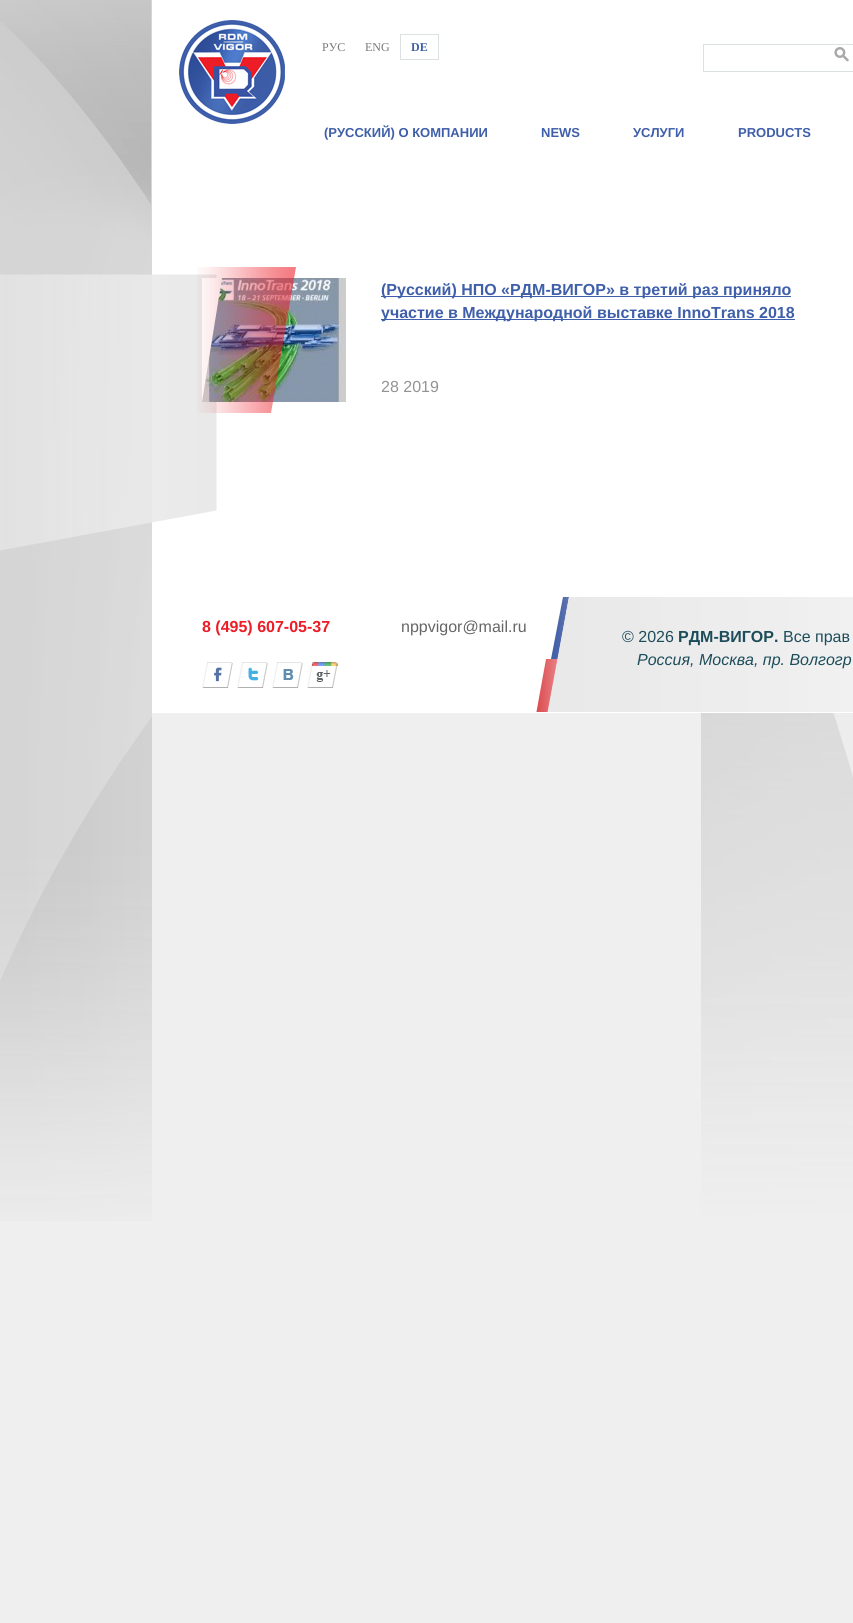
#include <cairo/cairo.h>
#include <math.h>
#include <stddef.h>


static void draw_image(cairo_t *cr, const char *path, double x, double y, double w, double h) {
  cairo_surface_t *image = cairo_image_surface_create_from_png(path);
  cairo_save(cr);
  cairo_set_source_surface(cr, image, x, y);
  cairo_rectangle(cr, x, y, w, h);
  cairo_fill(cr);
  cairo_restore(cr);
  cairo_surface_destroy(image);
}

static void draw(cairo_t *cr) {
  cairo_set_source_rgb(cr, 239 / 255.0, 239 / 255.0, 239 / 255.0);
  cairo_paint(cr);
  draw_image(cr, "images/1.png", 0, 0, 853, 1221);
  cairo_set_source_rgb(cr, 1, 1, 1);
  cairo_rectangle(cr, 152, 0, 701, 713);
  cairo_fill(cr);
  draw_image(cr, "images/2.png", 179, 20, 106, 104);
  cairo_rectangle(cr, 400.5, 34.5, 38, 25);
  cairo_set_source_rgb(cr, 219 / 255.0, 224 / 255.0, 224 / 255.0);
  cairo_set_line_width(cr, 1);
  cairo_stroke(cr);
  cairo_rectangle(cr, 703.5, 44.5, 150, 27);
  cairo_stroke(cr);
  draw_image(cr, "images/3.png", 834, 47, 15, 15);
  draw_image(cr, "images/4.png", 0, 274, 217, 277);
  draw_image(cr, "images/6.png", 202, 278, 144, 124);
  cairo_set_source_rgb(cr, 1, 1, 1);
  cairo_new_path(cr);
  cairo_move_to(cr, 202, 278);
  cairo_line_to(cr, 222, 278);
  cairo_line_to(cr, 202, 402);
  cairo_close_path(cr);
  cairo_fill(cr);
  draw_image(cr, "images/5.png", 197, 267, 99, 146);
  cairo_set_source_rgb(cr, 63 / 255.0, 95 / 255.0, 170 / 255.0);
  cairo_rectangle(cr, 381, 296, 410, 1);
  cairo_fill(cr);
  cairo_rectangle(cr, 381, 319, 414, 1);
  cairo_fill(cr);
  draw_image(cr, "images/7.png", 202, 662, 31, 26);
  draw_image(cr, "images/8.png", 237, 662, 31, 26);
  draw_image(cr, "images/9.png", 272, 662, 31, 26);
  draw_image(cr, "images/10.png", 307, 662, 31, 26);
  draw_image(cr, "images/11.png", 536, 597, 317, 115);
  cairo_select_font_face(cr, "Liberation Serif", CAIRO_FONT_SLANT_NORMAL, CAIRO_FONT_WEIGHT_NORMAL);
  cairo_set_font_size(cr, 12);
  cairo_set_source_rgb(cr, 121 / 255.0, 121 / 255.0, 122 / 255.0);
  cairo_move_to(cr, 322, 51);
  cairo_show_text(cr, "РУС");
  cairo_move_to(cr, 365, 51);
  cairo_show_text(cr, "ENG");
  cairo_select_font_face(cr, "Liberation Serif", CAIRO_FONT_SLANT_NORMAL, CAIRO_FONT_WEIGHT_BOLD);
  cairo_set_source_rgb(cr, 63 / 255.0, 95 / 255.0, 170 / 255.0);
  cairo_move_to(cr, 411, 51);
  cairo_show_text(cr, "DE");
  cairo_select_font_face(cr, "Liberation Sans", CAIRO_FONT_SLANT_NORMAL, CAIRO_FONT_WEIGHT_BOLD);
  cairo_set_font_size(cr, 13);
  cairo_move_to(cr, 324, 137);
  cairo_show_text(cr, "(РУССКИЙ) О КОМПАНИИ");
  cairo_move_to(cr, 541, 137);
  cairo_show_text(cr, "NEWS");
  cairo_move_to(cr, 633, 137);
  cairo_show_text(cr, "УСЛУГИ");
  cairo_move_to(cr, 738, 137);
  cairo_show_text(cr, "PRODUCTS");
  cairo_set_font_size(cr, 16);
  cairo_move_to(cr, 381, 295);
  cairo_show_text(cr, "(Русский) НПО «РДМ-ВИГОР» в третий раз приняло");
  cairo_move_to(cr, 381, 318);
  cairo_show_text(cr, "участие в Международной выставке InnoTrans 2018");
  cairo_select_font_face(cr, "Liberation Sans", CAIRO_FONT_SLANT_NORMAL, CAIRO_FONT_WEIGHT_NORMAL);
  cairo_set_source_rgb(cr, 147 / 255.0, 147 / 255.0, 147 / 255.0);
  cairo_move_to(cr, 381, 392);
  cairo_show_text(cr, "28 2019");
  cairo_select_font_face(cr, "Liberation Sans", CAIRO_FONT_SLANT_NORMAL, CAIRO_FONT_WEIGHT_BOLD);
  cairo_set_source_rgb(cr, 236 / 255.0, 29 / 255.0, 39 / 255.0);
  cairo_move_to(cr, 202, 632);
  cairo_show_text(cr, "8 (495) 607-05-37");
  cairo_select_font_face(cr, "Liberation Sans", CAIRO_FONT_SLANT_NORMAL, CAIRO_FONT_WEIGHT_NORMAL);
  cairo_set_source_rgb(cr, 102 / 255.0, 102 / 255.0, 102 / 255.0);
  cairo_move_to(cr, 401, 632);
  cairo_show_text(cr, "nppvigor@mail.ru");
  cairo_set_source_rgb(cr, 29 / 255.0, 77 / 255.0, 90 / 255.0);
  cairo_move_to(cr, 622, 642);
  cairo_show_text(cr, "© 2026");
  cairo_select_font_face(cr, "Liberation Sans", CAIRO_FONT_SLANT_NORMAL, CAIRO_FONT_WEIGHT_BOLD);
  cairo_move_to(cr, 678, 642);
  cairo_show_text(cr, "РДМ-ВИГОР.");
  cairo_select_font_face(cr, "Liberation Sans", CAIRO_FONT_SLANT_NORMAL, CAIRO_FONT_WEIGHT_NORMAL);
  cairo_move_to(cr, 783, 642);
  cairo_show_text(cr, "Все прав");
  cairo_select_font_face(cr, "Liberation Sans", CAIRO_FONT_SLANT_ITALIC, CAIRO_FONT_WEIGHT_NORMAL);
  cairo_move_to(cr, 637, 665);
  cairo_show_text(cr, "Россия, Москва, пр. Волгогр");
}

int main(void) {
  cairo_surface_t *surface = cairo_image_surface_create(CAIRO_FORMAT_RGB24, 853, 1623);
  cairo_t *cr = cairo_create(surface);
  cairo_font_options_t *options = cairo_font_options_create();
  cairo_font_options_set_hint_metrics(options, CAIRO_HINT_METRICS_OFF);
  cairo_font_options_set_hint_style(options, CAIRO_HINT_STYLE_NONE);
  cairo_set_font_options(cr, options);
  cairo_set_miter_limit(cr, 4);
  draw(cr);
  cairo_surface_write_to_png(surface, "out.png");
  cairo_font_options_destroy(options);
  cairo_destroy(cr);
  cairo_surface_destroy(surface);
  return 0;
}
